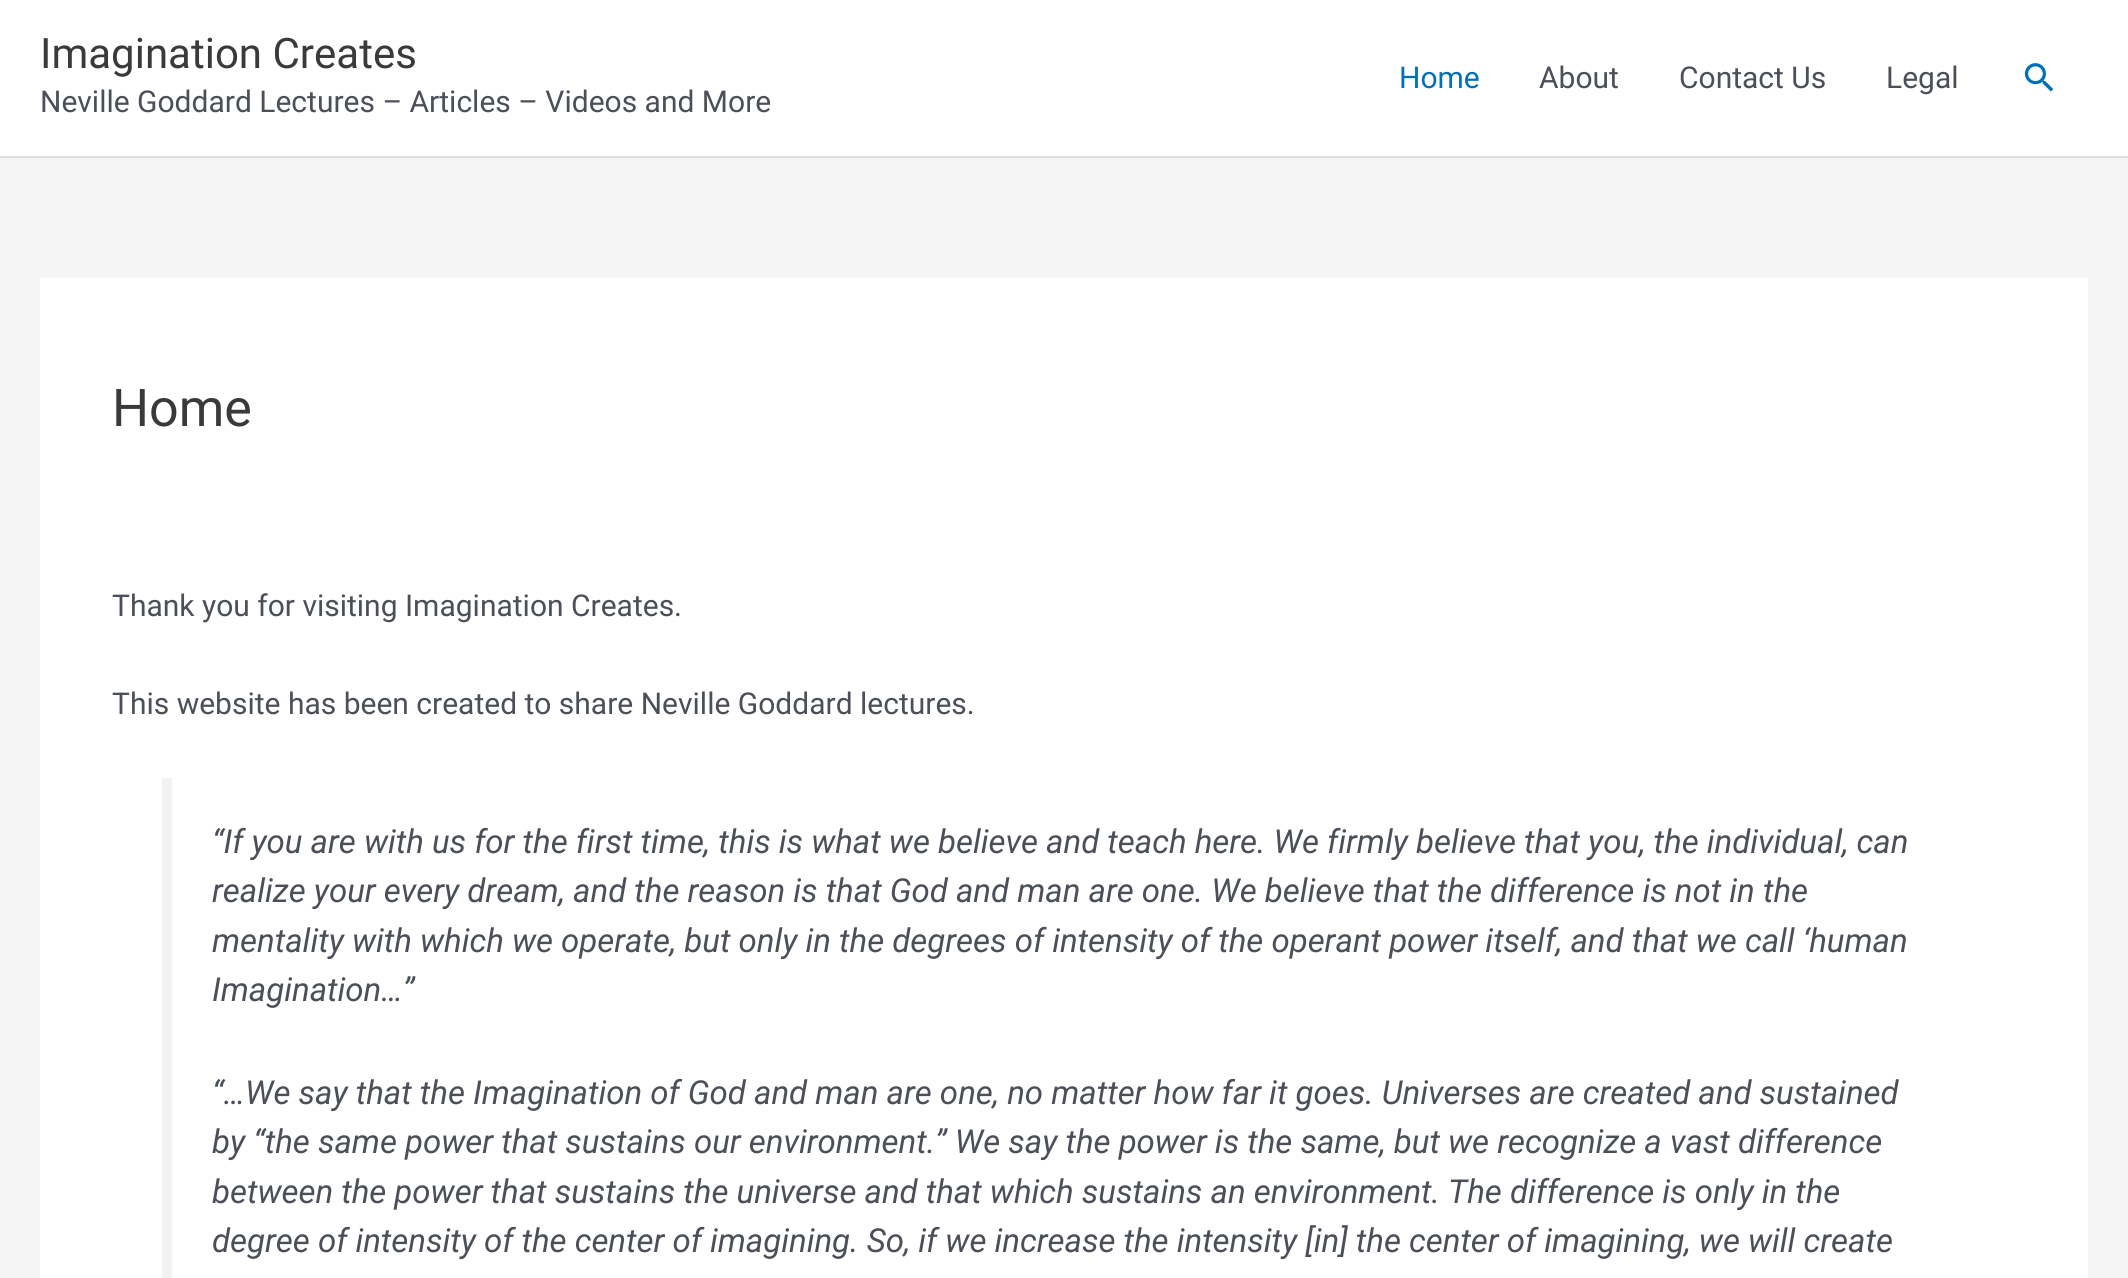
#include <cairo/cairo.h>
#include <math.h>
#include <stddef.h>


static void draw_image(cairo_t *cr, const char *path, double x, double y, double w, double h) {
  cairo_surface_t *image = cairo_image_surface_create_from_png(path);
  cairo_save(cr);
  cairo_set_source_surface(cr, image, x, y);
  cairo_rectangle(cr, x, y, w, h);
  cairo_fill(cr);
  cairo_restore(cr);
  cairo_surface_destroy(image);
}

static void draw(cairo_t *cr) {
  cairo_set_source_rgb(cr, 245 / 255.0, 245 / 255.0, 245 / 255.0);
  cairo_paint(cr);
  cairo_set_source_rgb(cr, 1, 1, 1);
  cairo_rectangle(cr, 0, 0, 2128, 156);
  cairo_fill(cr);
  cairo_set_source_rgb(cr, 221 / 255.0, 221 / 255.0, 221 / 255.0);
  cairo_rectangle(cr, 0, 156, 2128, 2);
  cairo_fill(cr);
  draw_image(cr, "images/1.png", 2024, 63, 30, 29);
  cairo_set_source_rgb(cr, 1, 1, 1);
  cairo_rectangle(cr, 40, 278, 2048, 1000);
  cairo_fill(cr);
  cairo_set_source_rgb(cr, 242 / 255.0, 242 / 255.0, 242 / 255.0);
  cairo_rectangle(cr, 162, 778, 10, 500);
  cairo_fill(cr);
  cairo_select_font_face(cr, "Roboto", CAIRO_FONT_SLANT_NORMAL, CAIRO_FONT_WEIGHT_NORMAL);
  cairo_set_font_size(cr, 42);
  cairo_set_source_rgb(cr, 58 / 255.0, 58 / 255.0, 58 / 255.0);
  cairo_move_to(cr, 40, 68);
  cairo_show_text(cr, "Imagination Creates");
  cairo_set_font_size(cr, 30);
  cairo_set_source_rgb(cr, 75 / 255.0, 79 / 255.0, 88 / 255.0);
  cairo_move_to(cr, 40, 112);
  cairo_show_text(cr, "Neville Goddard Lectures – Articles – Videos and More");
  cairo_set_source_rgb(cr, 1 / 255.0, 112 / 255.0, 185 / 255.0);
  cairo_move_to(cr, 1399, 88);
  cairo_show_text(cr, "Home");
  cairo_set_source_rgb(cr, 75 / 255.0, 79 / 255.0, 88 / 255.0);
  cairo_move_to(cr, 1539, 88);
  cairo_show_text(cr, "About");
  cairo_move_to(cr, 1679, 88);
  cairo_show_text(cr, "Contact Us");
  cairo_move_to(cr, 1886, 88);
  cairo_show_text(cr, "Legal");
  cairo_set_font_size(cr, 52);
  cairo_set_source_rgb(cr, 58 / 255.0, 58 / 255.0, 58 / 255.0);
  cairo_move_to(cr, 112, 426);
  cairo_show_text(cr, "Home");
  cairo_set_font_size(cr, 30);
  cairo_set_source_rgb(cr, 75 / 255.0, 79 / 255.0, 88 / 255.0);
  cairo_move_to(cr, 112, 616);
  cairo_show_text(cr, "Thank you for visiting Imagination Creates.");
  cairo_move_to(cr, 112, 714);
  cairo_show_text(cr, "This website has been created to share Neville Goddard lectures.");
  cairo_select_font_face(cr, "Roboto", CAIRO_FONT_SLANT_ITALIC, CAIRO_FONT_WEIGHT_NORMAL);
  cairo_set_font_size(cr, 33);
  cairo_move_to(cr, 212, 853);
  cairo_show_text(cr, "“If you are with us for the first time, this is what we believe and teach here. We firmly believe that you, the individual, can");
  cairo_move_to(cr, 212, 902);
  cairo_show_text(cr, "realize your every dream, and the reason is that God and man are one. We believe that the difference is not in the");
  cairo_move_to(cr, 212, 952);
  cairo_show_text(cr, "mentality with which we operate, but only in the degrees of intensity of the operant power itself, and that we call ‘human");
  cairo_move_to(cr, 212, 1001);
  cairo_show_text(cr, "Imagination…”");
  cairo_move_to(cr, 212, 1104);
  cairo_show_text(cr, "“…We say that the Imagination of God and man are one, no matter how far it goes. Universes are created and sustained");
  cairo_move_to(cr, 212, 1153);
  cairo_show_text(cr, "by “the same power that sustains our environment.” We say the power is the same, but we recognize a vast difference");
  cairo_move_to(cr, 212, 1203);
  cairo_show_text(cr, "between the power that sustains the universe and that which sustains an environment. The difference is only in the");
  cairo_move_to(cr, 212, 1252);
  cairo_show_text(cr, "degree of intensity of the center of imagining. So, if we increase the intensity [in] the center of imagining, we will create");
}

int main(void) {
  cairo_surface_t *surface = cairo_image_surface_create(CAIRO_FORMAT_RGB24, 2128, 1278);
  cairo_t *cr = cairo_create(surface);
  cairo_font_options_t *options = cairo_font_options_create();
  cairo_font_options_set_hint_metrics(options, CAIRO_HINT_METRICS_OFF);
  cairo_font_options_set_hint_style(options, CAIRO_HINT_STYLE_NONE);
  cairo_set_font_options(cr, options);
  cairo_set_miter_limit(cr, 4);
  draw(cr);
  cairo_surface_write_to_png(surface, "out.png");
  cairo_font_options_destroy(options);
  cairo_destroy(cr);
  cairo_surface_destroy(surface);
  return 0;
}
